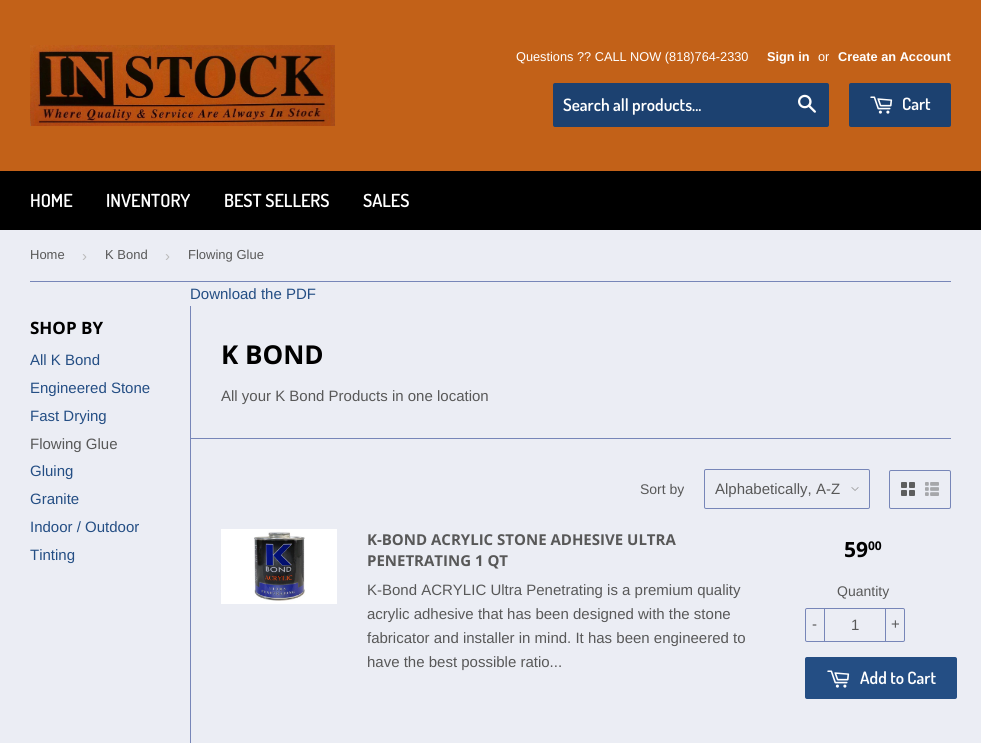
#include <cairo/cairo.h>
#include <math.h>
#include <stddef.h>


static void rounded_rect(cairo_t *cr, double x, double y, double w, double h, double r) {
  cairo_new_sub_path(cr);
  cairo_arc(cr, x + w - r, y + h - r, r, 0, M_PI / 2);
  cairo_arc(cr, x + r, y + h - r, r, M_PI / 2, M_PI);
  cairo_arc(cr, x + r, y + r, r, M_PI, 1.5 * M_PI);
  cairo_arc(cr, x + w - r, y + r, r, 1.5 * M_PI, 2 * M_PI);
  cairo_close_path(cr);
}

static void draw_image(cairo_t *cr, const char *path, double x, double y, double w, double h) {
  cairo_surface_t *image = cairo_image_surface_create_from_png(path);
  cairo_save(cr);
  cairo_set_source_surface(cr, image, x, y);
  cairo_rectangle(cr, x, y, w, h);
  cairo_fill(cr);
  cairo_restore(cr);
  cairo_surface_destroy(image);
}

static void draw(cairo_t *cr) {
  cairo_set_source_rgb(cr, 235 / 255.0, 237 / 255.0, 244 / 255.0);
  cairo_paint(cr);
  cairo_set_source_rgb(cr, 194 / 255.0, 97 / 255.0, 24 / 255.0);
  cairo_rectangle(cr, 0, 0, 981, 171);
  cairo_fill(cr);
  draw_image(cr, "images/1.png", 30, 45, 305, 81);
  cairo_set_source_rgb(cr, 28 / 255.0, 65 / 255.0, 112 / 255.0);
  rounded_rect(cr, 553, 83, 276, 44, 2);
  cairo_fill(cr);
  draw_image(cr, "images/2.png", 798, 94, 18, 19);
  rounded_rect(cr, 849, 83, 102, 44, 2);
  cairo_fill(cr);
  draw_image(cr, "images/3.png", 870, 96, 23, 18);
  cairo_set_source_rgb(cr, 0, 0, 0);
  cairo_rectangle(cr, 0, 171, 981, 59);
  cairo_fill(cr);
  cairo_set_source_rgb(cr, 119 / 255.0, 134 / 255.0, 184 / 255.0);
  cairo_rectangle(cr, 30, 281, 921, 1);
  cairo_fill(cr);
  cairo_rectangle(cr, 190, 306, 1, 437);
  cairo_fill(cr);
  cairo_rectangle(cr, 191, 438, 760, 1);
  cairo_fill(cr);
  draw_image(cr, "images/4.png", 851, 487, 8, 4);
  rounded_rect(cr, 704.5, 469.5, 165, 39, 1.5);
  cairo_set_line_width(cr, 1);
  cairo_stroke(cr);
  rounded_rect(cr, 889.5, 470.5, 61, 38, 1.5);
  cairo_stroke(cr);
  draw_image(cr, "images/5.png", 901, 482, 14, 14);
  draw_image(cr, "images/6.png", 925, 482, 14, 14);
  draw_image(cr, "images/7.png", 221, 529, 116, 75);
  rounded_rect(cr, 805.5, 608.5, 99, 33, 1.5);
  cairo_stroke(cr);
  cairo_rectangle(cr, 824, 608, 1, 34);
  cairo_fill(cr);
  cairo_rectangle(cr, 885, 608, 1, 34);
  cairo_fill(cr);
  cairo_set_source_rgb(cr, 36 / 255.0, 78 / 255.0, 132 / 255.0);
  rounded_rect(cr, 805, 657, 152, 42, 2);
  cairo_fill(cr);
  draw_image(cr, "images/8.png", 827, 670, 23, 18);
  cairo_select_font_face(cr, "Liberation Sans", CAIRO_FONT_SLANT_NORMAL, CAIRO_FONT_WEIGHT_NORMAL);
  cairo_set_font_size(cr, 12.75);
  cairo_set_source_rgb(cr, 1, 1, 1);
  cairo_move_to(cr, 516, 61);
  cairo_show_text(cr, "Questions ?\077 CALL NOW (818)764-2330");
  cairo_select_font_face(cr, "Liberation Sans", CAIRO_FONT_SLANT_NORMAL, CAIRO_FONT_WEIGHT_BOLD);
  cairo_move_to(cr, 767, 61);
  cairo_show_text(cr, "Sign in");
  cairo_select_font_face(cr, "Liberation Sans", CAIRO_FONT_SLANT_NORMAL, CAIRO_FONT_WEIGHT_NORMAL);
  cairo_move_to(cr, 818, 61);
  cairo_show_text(cr, "or");
  cairo_select_font_face(cr, "Liberation Sans", CAIRO_FONT_SLANT_NORMAL, CAIRO_FONT_WEIGHT_BOLD);
  cairo_move_to(cr, 838, 61);
  cairo_show_text(cr, "Create an Account");
  cairo_select_font_face(cr, "Dosis SemiBold", CAIRO_FONT_SLANT_NORMAL, CAIRO_FONT_WEIGHT_NORMAL);
  cairo_set_font_size(cr, 17);
  cairo_move_to(cr, 563, 111);
  cairo_show_text(cr, "Search all products...");
  cairo_move_to(cr, 902, 110);
  cairo_show_text(cr, "Cart");
  cairo_set_font_size(cr, 18);
  cairo_move_to(cr, 30, 207);
  cairo_show_text(cr, "HOME");
  cairo_move_to(cr, 106, 207);
  cairo_show_text(cr, "INVENTORY");
  cairo_move_to(cr, 224, 207);
  cairo_show_text(cr, "BEST SELLERS");
  cairo_move_to(cr, 363, 207);
  cairo_show_text(cr, "SALES");
  cairo_select_font_face(cr, "Liberation Sans", CAIRO_FONT_SLANT_NORMAL, CAIRO_FONT_WEIGHT_NORMAL);
  cairo_set_font_size(cr, 13);
  cairo_set_source_rgb(cr, 88 / 255.0, 88 / 255.0, 88 / 255.0);
  cairo_move_to(cr, 30, 259);
  cairo_show_text(cr, "Home");
  cairo_set_font_size(cr, 15);
  cairo_set_source_rgb(cr, 187 / 255.0, 187 / 255.0, 187 / 255.0);
  cairo_move_to(cr, 82, 261);
  cairo_show_text(cr, "›");
  cairo_set_font_size(cr, 13);
  cairo_set_source_rgb(cr, 88 / 255.0, 88 / 255.0, 88 / 255.0);
  cairo_move_to(cr, 105, 259);
  cairo_show_text(cr, "K Bond");
  cairo_set_font_size(cr, 15);
  cairo_set_source_rgb(cr, 187 / 255.0, 187 / 255.0, 187 / 255.0);
  cairo_move_to(cr, 165, 261);
  cairo_show_text(cr, "›");
  cairo_set_font_size(cr, 13);
  cairo_set_source_rgb(cr, 88 / 255.0, 88 / 255.0, 88 / 255.0);
  cairo_move_to(cr, 188, 259);
  cairo_show_text(cr, "Flowing Glue");
  cairo_set_font_size(cr, 15);
  cairo_set_source_rgb(cr, 36 / 255.0, 78 / 255.0, 132 / 255.0);
  cairo_move_to(cr, 190, 299);
  cairo_show_text(cr, "Download the PDF");
  cairo_select_font_face(cr, "Open Sans", CAIRO_FONT_SLANT_NORMAL, CAIRO_FONT_WEIGHT_BOLD);
  cairo_set_font_size(cr, 17);
  cairo_set_source_rgb(cr, 0, 0, 0);
  cairo_move_to(cr, 30, 334);
  cairo_show_text(cr, "SHOP BY");
  cairo_select_font_face(cr, "Liberation Sans", CAIRO_FONT_SLANT_NORMAL, CAIRO_FONT_WEIGHT_NORMAL);
  cairo_set_font_size(cr, 15);
  cairo_set_source_rgb(cr, 36 / 255.0, 78 / 255.0, 132 / 255.0);
  cairo_move_to(cr, 30, 365);
  cairo_show_text(cr, "All K Bond");
  cairo_move_to(cr, 30, 393);
  cairo_show_text(cr, "Engineered Stone");
  cairo_move_to(cr, 30, 421);
  cairo_show_text(cr, "Fast Drying");
  cairo_set_source_rgb(cr, 88 / 255.0, 88 / 255.0, 88 / 255.0);
  cairo_move_to(cr, 30, 449);
  cairo_show_text(cr, "Flowing Glue");
  cairo_set_source_rgb(cr, 36 / 255.0, 78 / 255.0, 132 / 255.0);
  cairo_move_to(cr, 30, 476);
  cairo_show_text(cr, "Gluing");
  cairo_move_to(cr, 30, 504);
  cairo_show_text(cr, "Granite");
  cairo_move_to(cr, 30, 532);
  cairo_show_text(cr, "Indoor / Outdoor");
  cairo_move_to(cr, 30, 560);
  cairo_show_text(cr, "Tinting");
  cairo_select_font_face(cr, "Open Sans", CAIRO_FONT_SLANT_NORMAL, CAIRO_FONT_WEIGHT_BOLD);
  cairo_set_font_size(cr, 26);
  cairo_set_source_rgb(cr, 0, 0, 0);
  cairo_move_to(cr, 221, 364);
  cairo_show_text(cr, "K BOND");
  cairo_select_font_face(cr, "Liberation Sans", CAIRO_FONT_SLANT_NORMAL, CAIRO_FONT_WEIGHT_NORMAL);
  cairo_set_font_size(cr, 15);
  cairo_set_source_rgb(cr, 88 / 255.0, 88 / 255.0, 88 / 255.0);
  cairo_move_to(cr, 221, 401);
  cairo_show_text(cr, "All your K Bond Products in one location");
  cairo_set_font_size(cr, 14);
  cairo_move_to(cr, 640, 494);
  cairo_show_text(cr, "Sort by");
  cairo_set_font_size(cr, 15);
  cairo_move_to(cr, 715, 494);
  cairo_show_text(cr, "Alphabetically, A-Z");
  cairo_select_font_face(cr, "Open Sans", CAIRO_FONT_SLANT_NORMAL, CAIRO_FONT_WEIGHT_BOLD);
  cairo_move_to(cr, 367, 545);
  cairo_show_text(cr, "K-BOND ACRYLIC STONE ADHESIVE ULTRA");
  cairo_move_to(cr, 367, 566);
  cairo_show_text(cr, "PENETRATING 1 QT");
  cairo_select_font_face(cr, "Liberation Sans", CAIRO_FONT_SLANT_NORMAL, CAIRO_FONT_WEIGHT_NORMAL);
  cairo_move_to(cr, 367, 595);
  cairo_show_text(cr, "K-Bond ACRYLIC Ultra Penetrating is a premium quality");
  cairo_move_to(cr, 367, 619);
  cairo_show_text(cr, "acrylic adhesive that has been designed with the stone");
  cairo_move_to(cr, 367, 643);
  cairo_show_text(cr, "fabricator and installer in mind. It has been engineered to");
  cairo_move_to(cr, 367, 667);
  cairo_show_text(cr, "have the best possible ratio...");
  cairo_select_font_face(cr, "Open Sans", CAIRO_FONT_SLANT_NORMAL, CAIRO_FONT_WEIGHT_BOLD);
  cairo_set_font_size(cr, 21);
  cairo_set_source_rgb(cr, 0, 0, 0);
  cairo_move_to(cr, 844, 557);
  cairo_show_text(cr, "59");
  cairo_set_font_size(cr, 12);
  cairo_move_to(cr, 868, 550);
  cairo_show_text(cr, "00");
  cairo_select_font_face(cr, "Liberation Sans", CAIRO_FONT_SLANT_NORMAL, CAIRO_FONT_WEIGHT_NORMAL);
  cairo_set_font_size(cr, 14);
  cairo_set_source_rgb(cr, 88 / 255.0, 88 / 255.0, 88 / 255.0);
  cairo_move_to(cr, 837, 596);
  cairo_show_text(cr, "Quantity");
  cairo_set_font_size(cr, 15);
  cairo_move_to(cr, 812, 629);
  cairo_show_text(cr, "-");
  cairo_move_to(cr, 851, 630);
  cairo_show_text(cr, "1");
  cairo_move_to(cr, 891, 629);
  cairo_show_text(cr, "+");
  cairo_select_font_face(cr, "Dosis SemiBold", CAIRO_FONT_SLANT_NORMAL, CAIRO_FONT_WEIGHT_NORMAL);
  cairo_set_font_size(cr, 17);
  cairo_set_source_rgb(cr, 1, 1, 1);
  cairo_move_to(cr, 860, 684);
  cairo_show_text(cr, "Add to Cart");
}

int main(void) {
  cairo_surface_t *surface = cairo_image_surface_create(CAIRO_FORMAT_RGB24, 981, 743);
  cairo_t *cr = cairo_create(surface);
  cairo_font_options_t *options = cairo_font_options_create();
  cairo_font_options_set_hint_metrics(options, CAIRO_HINT_METRICS_OFF);
  cairo_font_options_set_hint_style(options, CAIRO_HINT_STYLE_NONE);
  cairo_set_font_options(cr, options);
  cairo_set_miter_limit(cr, 4);
  draw(cr);
  cairo_surface_write_to_png(surface, "out.png");
  cairo_font_options_destroy(options);
  cairo_destroy(cr);
  cairo_surface_destroy(surface);
  return 0;
}
